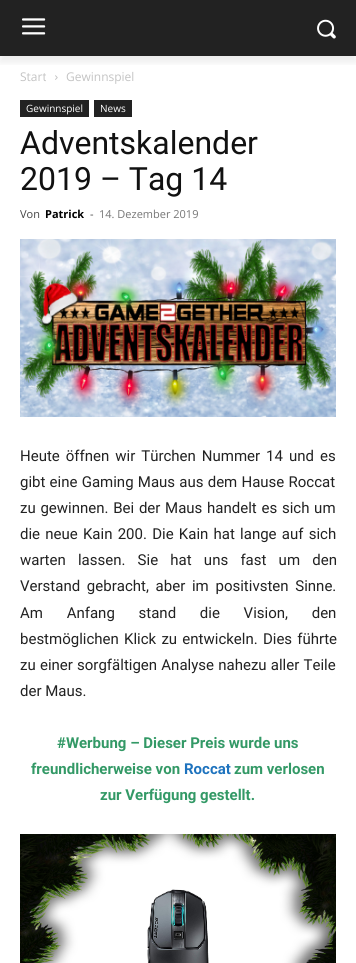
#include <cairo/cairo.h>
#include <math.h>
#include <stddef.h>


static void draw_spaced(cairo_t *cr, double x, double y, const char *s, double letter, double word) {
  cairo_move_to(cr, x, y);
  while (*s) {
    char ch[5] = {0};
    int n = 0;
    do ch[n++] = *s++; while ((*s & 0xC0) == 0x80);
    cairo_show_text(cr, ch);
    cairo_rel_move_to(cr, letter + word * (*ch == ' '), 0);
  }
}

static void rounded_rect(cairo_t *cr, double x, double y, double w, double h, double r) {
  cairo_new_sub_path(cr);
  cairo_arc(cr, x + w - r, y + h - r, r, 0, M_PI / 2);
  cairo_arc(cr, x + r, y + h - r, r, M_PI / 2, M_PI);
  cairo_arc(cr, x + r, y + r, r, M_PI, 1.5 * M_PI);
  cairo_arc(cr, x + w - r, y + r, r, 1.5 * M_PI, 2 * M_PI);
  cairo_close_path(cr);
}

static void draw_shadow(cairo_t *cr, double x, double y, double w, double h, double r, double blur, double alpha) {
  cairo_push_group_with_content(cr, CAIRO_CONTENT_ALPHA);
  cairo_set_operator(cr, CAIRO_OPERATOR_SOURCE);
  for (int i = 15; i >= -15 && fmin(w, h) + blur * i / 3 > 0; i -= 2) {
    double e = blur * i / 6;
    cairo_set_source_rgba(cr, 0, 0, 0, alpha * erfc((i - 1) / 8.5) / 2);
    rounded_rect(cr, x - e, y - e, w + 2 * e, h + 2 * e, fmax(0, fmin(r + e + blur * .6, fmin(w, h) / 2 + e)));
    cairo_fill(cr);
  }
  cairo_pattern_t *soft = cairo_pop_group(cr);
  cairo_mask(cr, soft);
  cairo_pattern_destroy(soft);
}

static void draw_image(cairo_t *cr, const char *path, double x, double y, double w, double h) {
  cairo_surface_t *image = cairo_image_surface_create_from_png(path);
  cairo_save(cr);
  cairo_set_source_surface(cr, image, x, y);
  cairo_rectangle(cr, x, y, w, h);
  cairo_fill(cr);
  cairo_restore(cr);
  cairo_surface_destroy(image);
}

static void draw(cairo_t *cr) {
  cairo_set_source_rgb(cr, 1, 1, 1);
  cairo_paint(cr);
  cairo_set_source_rgb(cr, 34 / 255.0, 34 / 255.0, 34 / 255.0);
  cairo_rectangle(cr, 0, 0, 356, 56);
  cairo_fill(cr);
  draw_image(cr, "images/1.png", 22, 18, 24, 17);
  draw_image(cr, "images/2.png", 317, 19, 19, 20);
  cairo_save(cr);
  cairo_rectangle(cr, 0, 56, 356, 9);
  cairo_clip(cr);
  cairo_set_source_rgb(cr, 0, 0, 0);
  draw_shadow(cr, 0, 6, 356, 56, 0, 4, 0.08);
  cairo_restore(cr);
  draw_image(cr, "images/3.png", 55, 75, 3, 5);
  cairo_rectangle(cr, 20, 100, 69, 17);
  cairo_fill(cr);
  cairo_rectangle(cr, 94, 100, 38, 17);
  cairo_fill(cr);
  draw_image(cr, "images/4.png", 20, 239, 316, 178);
  draw_image(cr, "images/5.png", 20, 834, 316, 129);
  cairo_select_font_face(cr, "Open Sans", CAIRO_FONT_SLANT_NORMAL, CAIRO_FONT_WEIGHT_NORMAL);
  cairo_set_font_size(cr, 12);
  cairo_set_source_rgb(cr, 195 / 255.0, 195 / 255.0, 195 / 255.0);
  cairo_move_to(cr, 20, 81);
  cairo_show_text(cr, "Start");
  cairo_move_to(cr, 66, 81);
  cairo_show_text(cr, "Gewinnspiel");
  cairo_set_font_size(cr, 10);
  cairo_set_source_rgb(cr, 1, 1, 1);
  cairo_move_to(cr, 26, 112);
  cairo_show_text(cr, "Gewinnspiel");
  cairo_move_to(cr, 100, 112);
  cairo_show_text(cr, "News");
  cairo_select_font_face(cr, "Roboto", CAIRO_FONT_SLANT_NORMAL, CAIRO_FONT_WEIGHT_NORMAL);
  cairo_set_font_size(cr, 32);
  cairo_set_source_rgb(cr, 17 / 255.0, 17 / 255.0, 17 / 255.0);
  cairo_move_to(cr, 20, 154);
  cairo_show_text(cr, "Adventskalender");
  cairo_move_to(cr, 20, 190);
  cairo_show_text(cr, "2019 – Tag 14");
  cairo_select_font_face(cr, "Open Sans", CAIRO_FONT_SLANT_NORMAL, CAIRO_FONT_WEIGHT_NORMAL);
  cairo_set_font_size(cr, 11);
  cairo_set_source_rgb(cr, 68 / 255.0, 68 / 255.0, 68 / 255.0);
  cairo_move_to(cr, 20, 218);
  cairo_show_text(cr, "Von");
  cairo_select_font_face(cr, "Open Sans", CAIRO_FONT_SLANT_NORMAL, CAIRO_FONT_WEIGHT_BOLD);
  cairo_set_source_rgb(cr, 0, 0, 0);
  cairo_move_to(cr, 45, 218);
  cairo_show_text(cr, "Patrick");
  cairo_select_font_face(cr, "Open Sans", CAIRO_FONT_SLANT_NORMAL, CAIRO_FONT_WEIGHT_NORMAL);
  cairo_set_source_rgb(cr, 68 / 255.0, 68 / 255.0, 68 / 255.0);
  cairo_move_to(cr, 90, 218);
  cairo_show_text(cr, "-");
  cairo_set_source_rgb(cr, 118 / 255.0, 118 / 255.0, 118 / 255.0);
  cairo_move_to(cr, 99, 218);
  cairo_show_text(cr, "14. Dezember 2019");
  cairo_select_font_face(cr, "Roboto", CAIRO_FONT_SLANT_NORMAL, CAIRO_FONT_WEIGHT_NORMAL);
  cairo_set_font_size(cr, 15);
  cairo_set_source_rgb(cr, 34 / 255.0, 34 / 255.0, 34 / 255.0);
  draw_spaced(cr, 20, 461, "Heute öffnen wir Türchen Nummer 14 und es", 0, 2.25);
  draw_spaced(cr, 20, 487, "gibt eine Gaming Maus aus dem Hause Roccat", 0, 0.5);
  draw_spaced(cr, 20, 513, "zu gewinnen. Bei der Maus handelt es sich um", 0, 1);
  draw_spaced(cr, 20, 539, "die neue Kain 200. Die Kain hat lange auf sich", 0, 1.5);
  draw_spaced(cr, 20, 565, "warten lassen. Sie hat uns fast um den", 0, 8.5);
  draw_spaced(cr, 20, 591, "Verstand gebracht, aber im positivsten Sinne.", 0, 3);
  draw_spaced(cr, 20, 618, "Am Anfang stand die Vision, den", 0, 20);
  draw_spaced(cr, 20, 644, "bestmöglichen Klick zu entwickeln. Dies führte", 0, 1.5);
  draw_spaced(cr, 20, 670, "zu einer sorgfältigen Analyse nahezu aller Teile", 0, 0.5);
  cairo_move_to(cr, 20, 696);
  cairo_show_text(cr, "der Maus.");
  cairo_select_font_face(cr, "Roboto", CAIRO_FONT_SLANT_NORMAL, CAIRO_FONT_WEIGHT_BOLD);
  cairo_set_source_rgb(cr, 51 / 255.0, 153 / 255.0, 102 / 255.0);
  cairo_move_to(cr, 57, 748);
  cairo_show_text(cr, "#Werbung – Dieser Preis wurde uns");
  cairo_move_to(cr, 31, 774);
  cairo_show_text(cr, "freundlicherweise von");
  cairo_set_source_rgb(cr, 30 / 255.0, 115 / 255.0, 190 / 255.0);
  cairo_move_to(cr, 184, 774);
  cairo_show_text(cr, "Roccat");
  cairo_set_source_rgb(cr, 51 / 255.0, 153 / 255.0, 102 / 255.0);
  cairo_move_to(cr, 234, 774);
  cairo_show_text(cr, "zum verlosen");
  cairo_move_to(cr, 100, 800);
  cairo_show_text(cr, "zur Verfügung gestellt.");
}

int main(void) {
  cairo_surface_t *surface = cairo_image_surface_create(CAIRO_FORMAT_RGB24, 356, 963);
  cairo_t *cr = cairo_create(surface);
  cairo_font_options_t *options = cairo_font_options_create();
  cairo_font_options_set_hint_metrics(options, CAIRO_HINT_METRICS_OFF);
  cairo_font_options_set_hint_style(options, CAIRO_HINT_STYLE_NONE);
  cairo_set_font_options(cr, options);
  cairo_set_miter_limit(cr, 4);
  draw(cr);
  cairo_surface_write_to_png(surface, "out.png");
  cairo_font_options_destroy(options);
  cairo_destroy(cr);
  cairo_surface_destroy(surface);
  return 0;
}
